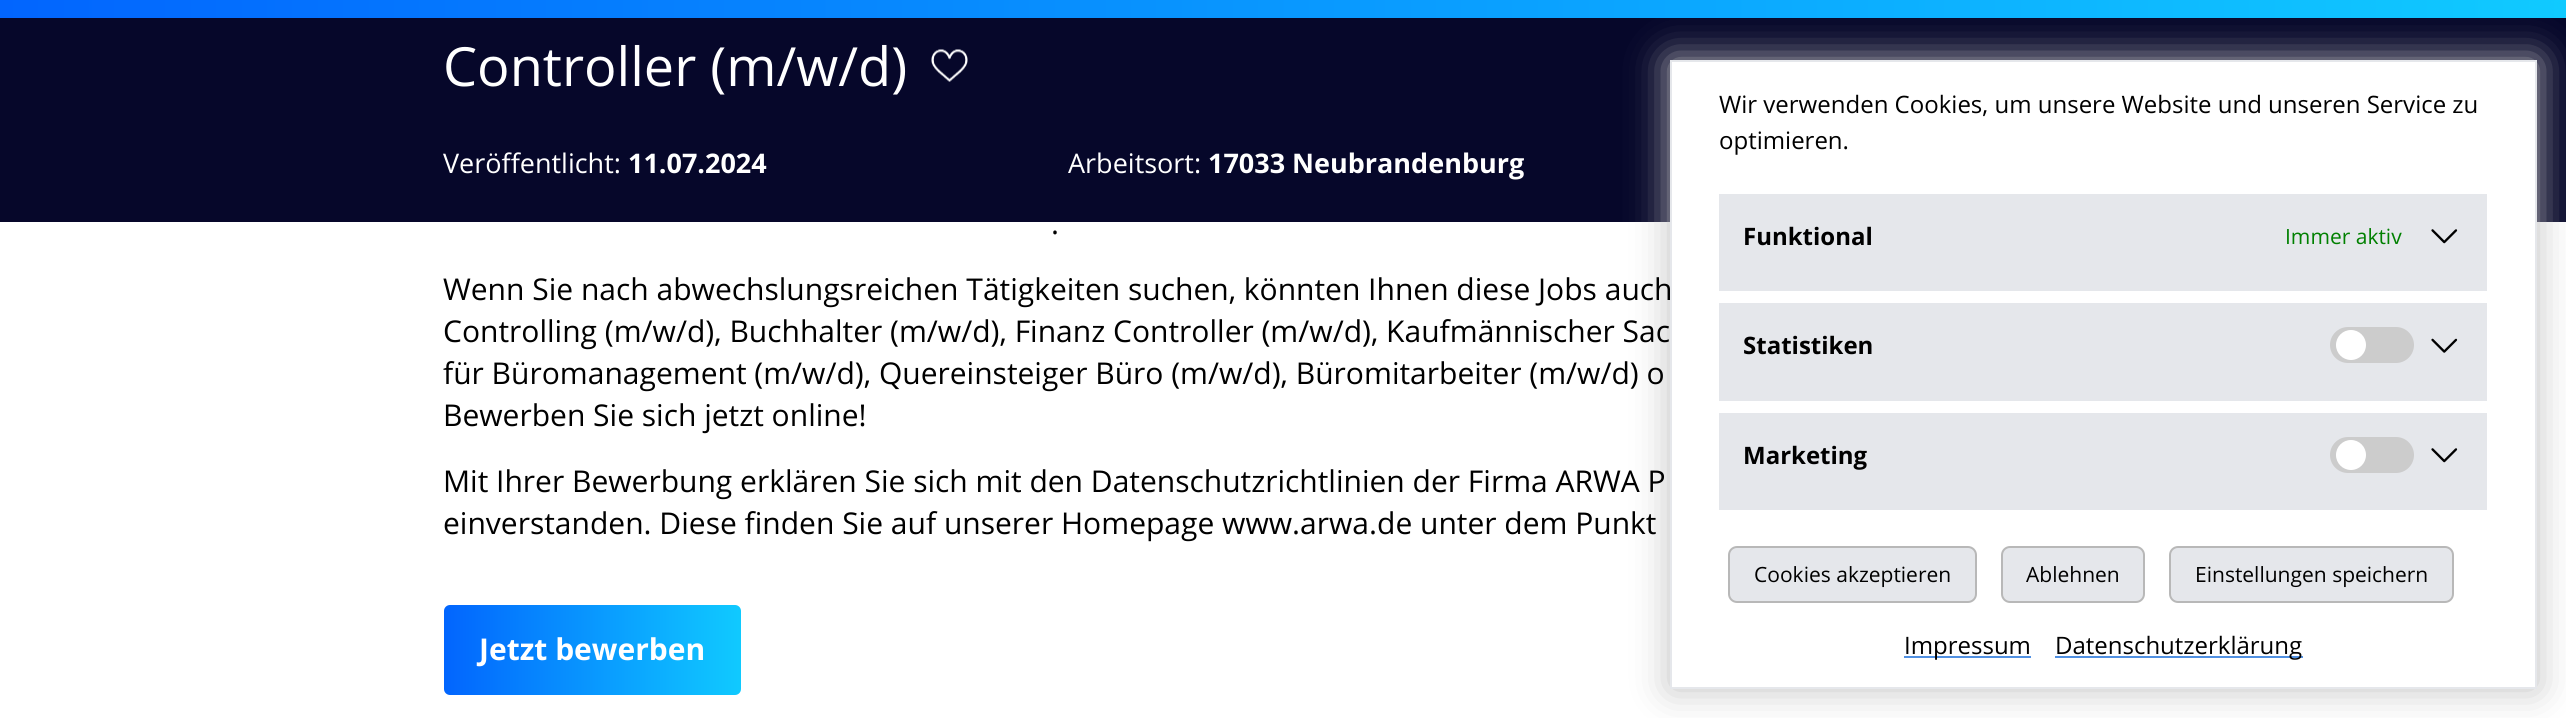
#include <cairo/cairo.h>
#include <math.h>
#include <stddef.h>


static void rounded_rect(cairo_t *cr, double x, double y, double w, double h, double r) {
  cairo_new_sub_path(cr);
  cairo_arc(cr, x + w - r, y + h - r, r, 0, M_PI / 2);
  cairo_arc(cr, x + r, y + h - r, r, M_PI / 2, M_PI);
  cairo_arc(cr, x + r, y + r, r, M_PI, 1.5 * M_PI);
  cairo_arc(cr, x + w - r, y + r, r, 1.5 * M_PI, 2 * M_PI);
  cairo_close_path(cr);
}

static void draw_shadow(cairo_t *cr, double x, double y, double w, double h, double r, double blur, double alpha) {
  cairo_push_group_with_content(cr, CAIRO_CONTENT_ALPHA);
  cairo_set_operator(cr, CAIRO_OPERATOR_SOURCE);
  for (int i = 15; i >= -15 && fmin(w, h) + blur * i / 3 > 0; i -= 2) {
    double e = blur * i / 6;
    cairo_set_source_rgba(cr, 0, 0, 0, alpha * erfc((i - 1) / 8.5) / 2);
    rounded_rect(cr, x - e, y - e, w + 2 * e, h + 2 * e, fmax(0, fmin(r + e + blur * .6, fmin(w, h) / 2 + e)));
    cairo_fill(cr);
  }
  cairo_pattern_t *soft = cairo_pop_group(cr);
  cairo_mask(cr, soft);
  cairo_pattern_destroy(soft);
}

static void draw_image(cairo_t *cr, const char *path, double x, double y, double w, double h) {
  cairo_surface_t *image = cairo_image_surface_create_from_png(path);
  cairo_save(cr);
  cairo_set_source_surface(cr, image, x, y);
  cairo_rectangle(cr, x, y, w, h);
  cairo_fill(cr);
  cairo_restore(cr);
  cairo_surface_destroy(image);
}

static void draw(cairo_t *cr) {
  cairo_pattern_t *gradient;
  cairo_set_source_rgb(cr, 1, 1, 1);
  cairo_paint(cr);
  cairo_set_source_rgb(cr, 6 / 255.0, 7 / 255.0, 42 / 255.0);
  cairo_rectangle(cr, 0, 18, 2566, 204);
  cairo_fill(cr);
  cairo_set_source_rgb(cr, 192 / 255.0, 192 / 255.0, 192 / 255.0);
  draw_shadow(cr, 1670, 60, 867, 629, 0, 19, 1);
  gradient = cairo_pattern_create_linear(0, 9, 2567, 9);
  cairo_pattern_add_color_stop_rgba(gradient, 0, 2 / 255.0, 101 / 255.0, 254 / 255.0, 1);
  cairo_pattern_add_color_stop_rgba(gradient, 1, 16 / 255.0, 202 / 255.0, 1, 1);
  cairo_set_source(cr, gradient);
  cairo_pattern_destroy(gradient);
  cairo_rectangle(cr, 0, 0, 2566, 18);
  cairo_fill(cr);
  draw_image(cr, "images/1.png", 931, 49, 37, 33);
  gradient = cairo_pattern_create_linear(444, 650, 741, 650);
  cairo_pattern_add_color_stop_rgba(gradient, 0, 2 / 255.0, 101 / 255.0, 254 / 255.0, 1);
  cairo_pattern_add_color_stop_rgba(gradient, 1, 16 / 255.0, 202 / 255.0, 1, 1);
  cairo_set_source(cr, gradient);
  cairo_pattern_destroy(gradient);
  rounded_rect(cr, 444, 605, 297, 90, 6);
  cairo_fill(cr);
  cairo_select_font_face(cr, "Open Sans", CAIRO_FONT_SLANT_NORMAL, CAIRO_FONT_WEIGHT_NORMAL);
  cairo_set_font_size(cr, 54);
  cairo_set_source_rgb(cr, 1, 1, 1);
  cairo_move_to(cr, 443, 86);
  cairo_show_text(cr, "Controller (m/w/d)");
  cairo_set_font_size(cr, 27);
  cairo_move_to(cr, 443, 173);
  cairo_show_text(cr, "Veröffentlicht:");
  cairo_select_font_face(cr, "Open Sans", CAIRO_FONT_SLANT_NORMAL, CAIRO_FONT_WEIGHT_BOLD);
  cairo_move_to(cr, 628, 173);
  cairo_show_text(cr, "11.07.2024");
  cairo_select_font_face(cr, "Open Sans", CAIRO_FONT_SLANT_NORMAL, CAIRO_FONT_WEIGHT_NORMAL);
  cairo_move_to(cr, 1068, 173);
  cairo_show_text(cr, "Arbeitsort:");
  cairo_select_font_face(cr, "Open Sans", CAIRO_FONT_SLANT_NORMAL, CAIRO_FONT_WEIGHT_BOLD);
  cairo_move_to(cr, 1208, 173);
  cairo_show_text(cr, "17033 Neubrandenburg");
  cairo_select_font_face(cr, "Open Sans", CAIRO_FONT_SLANT_NORMAL, CAIRO_FONT_WEIGHT_NORMAL);
  cairo_set_font_size(cr, 30);
  cairo_set_source_rgb(cr, 0, 0, 0);
  cairo_move_to(cr, 1051, 234);
  cairo_show_text(cr, ".");
  cairo_move_to(cr, 443, 300);
  cairo_show_text(cr, "Wenn Sie nach abwechslungsreichen Tätigkeiten suchen, könnten Ihnen diese Jobs auch");
  cairo_move_to(cr, 443, 342);
  cairo_show_text(cr, "Controlling (m/w/d), Buchhalter (m/w/d), Finanz Controller (m/w/d), Kaufmännischer Sac");
  cairo_move_to(cr, 443, 384);
  cairo_show_text(cr, "für Büromanagement (m/w/d), Quereinsteiger Büro (m/w/d), Büromitarbeiter (m/w/d) o");
  cairo_move_to(cr, 443, 426);
  cairo_show_text(cr, "Bewerben Sie sich jetzt online!");
  cairo_move_to(cr, 443, 492);
  cairo_show_text(cr, "Mit Ihrer Bewerbung erklären Sie sich mit den Datenschutzrichtlinien der Firma ARWA P");
  cairo_move_to(cr, 443, 534);
  cairo_show_text(cr, "einverstanden. Diese finden Sie auf unserer Homepage www.arwa.de unter dem Punkt");
  cairo_select_font_face(cr, "Open Sans", CAIRO_FONT_SLANT_NORMAL, CAIRO_FONT_WEIGHT_BOLD);
  cairo_set_source_rgb(cr, 1, 1, 1);
  cairo_move_to(cr, 479, 660);
  cairo_show_text(cr, "Jetzt bewerben");
  cairo_rectangle(cr, 1671, 61, 865, 627);
  cairo_fill_preserve(cr);
  cairo_set_source_rgb(cr, 229 / 255.0, 231 / 255.0, 235 / 255.0);
  cairo_stroke(cr);
  cairo_select_font_face(cr, "Open Sans", CAIRO_FONT_SLANT_NORMAL, CAIRO_FONT_WEIGHT_NORMAL);
  cairo_set_font_size(cr, 24);
  cairo_set_source_rgb(cr, 0, 0, 0);
  cairo_move_to(cr, 1719, 113);
  cairo_show_text(cr, "Wir verwenden Cookies, um unsere Website und unseren Service zu");
  cairo_move_to(cr, 1719, 149);
  cairo_show_text(cr, "optimieren.");
  cairo_set_source_rgb(cr, 229 / 255.0, 231 / 255.0, 235 / 255.0);
  cairo_rectangle(cr, 1719, 194, 768, 97);
  cairo_fill(cr);
  cairo_select_font_face(cr, "Open Sans", CAIRO_FONT_SLANT_NORMAL, CAIRO_FONT_WEIGHT_BOLD);
  cairo_set_source_rgb(cr, 0, 0, 0);
  cairo_move_to(cr, 1743, 245);
  cairo_show_text(cr, "Funktional");
  cairo_select_font_face(cr, "Open Sans", CAIRO_FONT_SLANT_NORMAL, CAIRO_FONT_WEIGHT_NORMAL);
  cairo_set_font_size(cr, 21);
  cairo_set_source_rgb(cr, 0, 128 / 255.0, 0);
  cairo_move_to(cr, 2285, 244);
  cairo_show_text(cr, "Immer aktiv");
  draw_image(cr, "images/2.png", 2431, 229, 27, 15);
  cairo_set_source_rgb(cr, 229 / 255.0, 231 / 255.0, 235 / 255.0);
  cairo_rectangle(cr, 1719, 303, 768, 98);
  cairo_fill(cr);
  cairo_select_font_face(cr, "Open Sans", CAIRO_FONT_SLANT_NORMAL, CAIRO_FONT_WEIGHT_BOLD);
  cairo_set_font_size(cr, 24);
  cairo_set_source_rgb(cr, 0, 0, 0);
  cairo_move_to(cr, 1743, 354);
  cairo_show_text(cr, "Statistiken");
  cairo_set_source_rgb(cr, 204 / 255.0, 204 / 255.0, 204 / 255.0);
  rounded_rect(cr, 2330, 327, 84, 36, 18);
  cairo_fill(cr);
  cairo_set_source_rgb(cr, 1, 1, 1);
  cairo_arc(cr, 2351, 345, 15, 0, 2 * M_PI);
  cairo_fill(cr);
  draw_image(cr, "images/3.png", 2431, 338, 27, 15);
  cairo_set_source_rgb(cr, 229 / 255.0, 231 / 255.0, 235 / 255.0);
  cairo_rectangle(cr, 1719, 413, 768, 97);
  cairo_fill(cr);
  cairo_set_source_rgb(cr, 0, 0, 0);
  cairo_move_to(cr, 1743, 464);
  cairo_show_text(cr, "Marketing");
  cairo_set_source_rgb(cr, 204 / 255.0, 204 / 255.0, 204 / 255.0);
  rounded_rect(cr, 2330, 437, 84, 36, 18);
  cairo_fill(cr);
  cairo_set_source_rgb(cr, 1, 1, 1);
  cairo_arc(cr, 2351, 455, 15, 0, 2 * M_PI);
  cairo_fill(cr);
  draw_image(cr, "images/2.png", 2431, 448, 27, 15);
  cairo_set_source_rgb(cr, 229 / 255.0, 231 / 255.0, 235 / 255.0);
  rounded_rect(cr, 1729, 547, 247, 55, 8);
  cairo_fill_preserve(cr);
  cairo_set_source_rgb(cr, 184 / 255.0, 184 / 255.0, 184 / 255.0);
  cairo_stroke(cr);
  cairo_select_font_face(cr, "Open Sans", CAIRO_FONT_SLANT_NORMAL, CAIRO_FONT_WEIGHT_NORMAL);
  cairo_set_font_size(cr, 21);
  cairo_set_source_rgb(cr, 0, 0, 0);
  cairo_move_to(cr, 1754, 582);
  cairo_show_text(cr, "Cookies akzeptieren");
  cairo_set_source_rgb(cr, 229 / 255.0, 231 / 255.0, 235 / 255.0);
  rounded_rect(cr, 2002, 547, 142, 55, 8);
  cairo_fill_preserve(cr);
  cairo_set_source_rgb(cr, 184 / 255.0, 184 / 255.0, 184 / 255.0);
  cairo_stroke(cr);
  cairo_set_source_rgb(cr, 0, 0, 0);
  cairo_move_to(cr, 2026, 582);
  cairo_show_text(cr, "Ablehnen");
  cairo_set_source_rgb(cr, 229 / 255.0, 231 / 255.0, 235 / 255.0);
  rounded_rect(cr, 2170, 547, 283, 55, 8);
  cairo_fill_preserve(cr);
  cairo_set_source_rgb(cr, 184 / 255.0, 184 / 255.0, 184 / 255.0);
  cairo_stroke(cr);
  cairo_set_source_rgb(cr, 0, 0, 0);
  cairo_move_to(cr, 2195, 582);
  cairo_show_text(cr, "Einstellungen speichern");
  cairo_set_source_rgb(cr, 80 / 255.0, 144 / 255.0, 226 / 255.0);
  cairo_rectangle(cr, 1904, 656, 127, 2);
  cairo_fill(cr);
  cairo_set_font_size(cr, 24);
  cairo_set_source_rgb(cr, 0, 0, 0);
  cairo_move_to(cr, 1904, 654);
  cairo_show_text(cr, "Impressum");
  cairo_set_source_rgb(cr, 80 / 255.0, 144 / 255.0, 226 / 255.0);
  cairo_rectangle(cr, 2055, 656, 248, 2);
  cairo_fill(cr);
  cairo_set_source_rgb(cr, 0, 0, 0);
  cairo_move_to(cr, 2055, 654);
  cairo_show_text(cr, "Datenschutzerklärung");
}

int main(void) {
  cairo_surface_t *surface = cairo_image_surface_create(CAIRO_FORMAT_RGB24, 2566, 718);
  cairo_t *cr = cairo_create(surface);
  cairo_font_options_t *options = cairo_font_options_create();
  cairo_font_options_set_hint_metrics(options, CAIRO_HINT_METRICS_OFF);
  cairo_font_options_set_hint_style(options, CAIRO_HINT_STYLE_NONE);
  cairo_set_font_options(cr, options);
  cairo_set_miter_limit(cr, 4);
  draw(cr);
  cairo_surface_write_to_png(surface, "out.png");
  cairo_font_options_destroy(options);
  cairo_destroy(cr);
  cairo_surface_destroy(surface);
  return 0;
}
